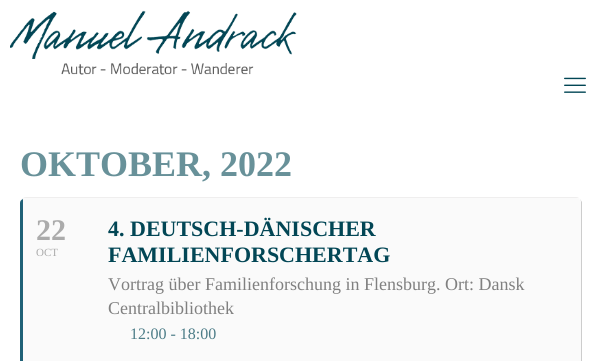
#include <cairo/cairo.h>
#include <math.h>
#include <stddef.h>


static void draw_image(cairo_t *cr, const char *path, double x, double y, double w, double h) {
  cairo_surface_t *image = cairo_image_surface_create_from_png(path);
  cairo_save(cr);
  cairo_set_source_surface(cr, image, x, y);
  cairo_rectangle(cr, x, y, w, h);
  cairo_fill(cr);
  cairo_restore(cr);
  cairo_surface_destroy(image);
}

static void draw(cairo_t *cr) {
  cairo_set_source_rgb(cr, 1, 1, 1);
  cairo_paint(cr);
  draw_image(cr, "images/1.png", 10, 10, 287, 65);
  draw_image(cr, "images/2.png", 564, 77, 22, 16);
  cairo_set_source_rgb(cr, 239 / 255.0, 238 / 255.0, 238 / 255.0);
  cairo_new_path(cr);
  cairo_move_to(cr, 26, 197);
  cairo_curve_to(cr, 23, 197, 20, 200, 20, 203);
  cairo_curve_to(cr, 20, 200, 23, 198, 26, 198);
  cairo_line_to(cr, 576, 198);
  cairo_curve_to(cr, 578, 198, 579, 198, 580, 199);
  cairo_curve_to(cr, 579, 198, 578, 197, 576, 197);
  cairo_close_path(cr);
  cairo_fill(cr);
  cairo_set_source_rgb(cr, 205 / 255.0, 205 / 255.0, 205 / 255.0);
  cairo_new_path(cr);
  cairo_move_to(cr, 582, 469);
  cairo_line_to(cr, 582, 202);
  cairo_line_to(cr, 580, 199);
  cairo_line_to(cr, 581, 202);
  cairo_line_to(cr, 581, 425);
  cairo_curve_to(cr, 581, 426, 588, 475, 576, 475);
  cairo_curve_to(cr, 579, 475, 582, 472, 582, 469);
  cairo_close_path(cr);
  cairo_fill(cr);
  cairo_set_source_rgb(cr, 250 / 255.0, 250 / 255.0, 250 / 255.0);
  cairo_new_path(cr);
  cairo_move_to(cr, 26, 198);
  cairo_curve_to(cr, 23, 198, 20, 200, 20, 203);
  cairo_line_to(cr, 20, 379);
  cairo_line_to(cr, 581, 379);
  cairo_line_to(cr, 581, 203);
  cairo_curve_to(cr, 581, 200, 579, 198, 576, 198);
  cairo_close_path(cr);
  cairo_fill(cr);
  cairo_set_source_rgb(cr, 32 / 255.0, 97 / 255.0, 119 / 255.0);
  cairo_new_path(cr);
  cairo_move_to(cr, 20, 203);
  cairo_line_to(cr, 20, 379);
  cairo_line_to(cr, 23, 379);
  cairo_line_to(cr, 23, 199);
  cairo_curve_to(cr, 21, 200, 20, 201, 20, 203);
  cairo_close_path(cr);
  cairo_fill(cr);
  cairo_select_font_face(cr, "Liberation Serif", CAIRO_FONT_SLANT_NORMAL, CAIRO_FONT_WEIGHT_BOLD);
  cairo_set_font_size(cr, 36);
  cairo_set_source_rgb(cr, 104 / 255.0, 145 / 255.0, 153 / 255.0);
  cairo_move_to(cr, 20, 176);
  cairo_show_text(cr, "OKTOBER, 2022");
  cairo_set_font_size(cr, 30);
  cairo_set_source_rgb(cr, 171 / 255.0, 171 / 255.0, 171 / 255.0);
  cairo_move_to(cr, 36, 240);
  cairo_show_text(cr, "22");
  cairo_select_font_face(cr, "Liberation Serif", CAIRO_FONT_SLANT_NORMAL, CAIRO_FONT_WEIGHT_NORMAL);
  cairo_set_font_size(cr, 11);
  cairo_move_to(cr, 36, 256);
  cairo_show_text(cr, "OCT");
  cairo_select_font_face(cr, "Liberation Serif", CAIRO_FONT_SLANT_NORMAL, CAIRO_FONT_WEIGHT_BOLD);
  cairo_set_font_size(cr, 22);
  cairo_set_source_rgb(cr, 2 / 255.0, 70 / 255.0, 85 / 255.0);
  cairo_move_to(cr, 108, 236);
  cairo_show_text(cr, "4. DEUTSCH-DÄNISCHER");
  cairo_move_to(cr, 108, 262);
  cairo_show_text(cr, "FAMILIENFORSCHERTAG");
  cairo_select_font_face(cr, "Liberation Serif", CAIRO_FONT_SLANT_NORMAL, CAIRO_FONT_WEIGHT_NORMAL);
  cairo_set_font_size(cr, 18);
  cairo_set_source_rgb(cr, 128 / 255.0, 128 / 255.0, 128 / 255.0);
  cairo_move_to(cr, 108, 290);
  cairo_show_text(cr, "Vortrag über Familienforschung in Flensburg. Ort: Dansk");
  cairo_move_to(cr, 108, 314);
  cairo_show_text(cr, "Centralbibliothek");
  cairo_set_font_size(cr, 16);
  cairo_set_source_rgb(cr, 76 / 255.0, 124 / 255.0, 135 / 255.0);
  cairo_move_to(cr, 130, 339);
  cairo_show_text(cr, "12:00 - 18:00");
}

int main(void) {
  cairo_surface_t *surface = cairo_image_surface_create(CAIRO_FORMAT_RGB24, 602, 361);
  cairo_t *cr = cairo_create(surface);
  cairo_font_options_t *options = cairo_font_options_create();
  cairo_font_options_set_hint_metrics(options, CAIRO_HINT_METRICS_OFF);
  cairo_font_options_set_hint_style(options, CAIRO_HINT_STYLE_NONE);
  cairo_set_font_options(cr, options);
  cairo_set_miter_limit(cr, 4);
  draw(cr);
  cairo_surface_write_to_png(surface, "out.png");
  cairo_font_options_destroy(options);
  cairo_destroy(cr);
  cairo_surface_destroy(surface);
  return 0;
}
